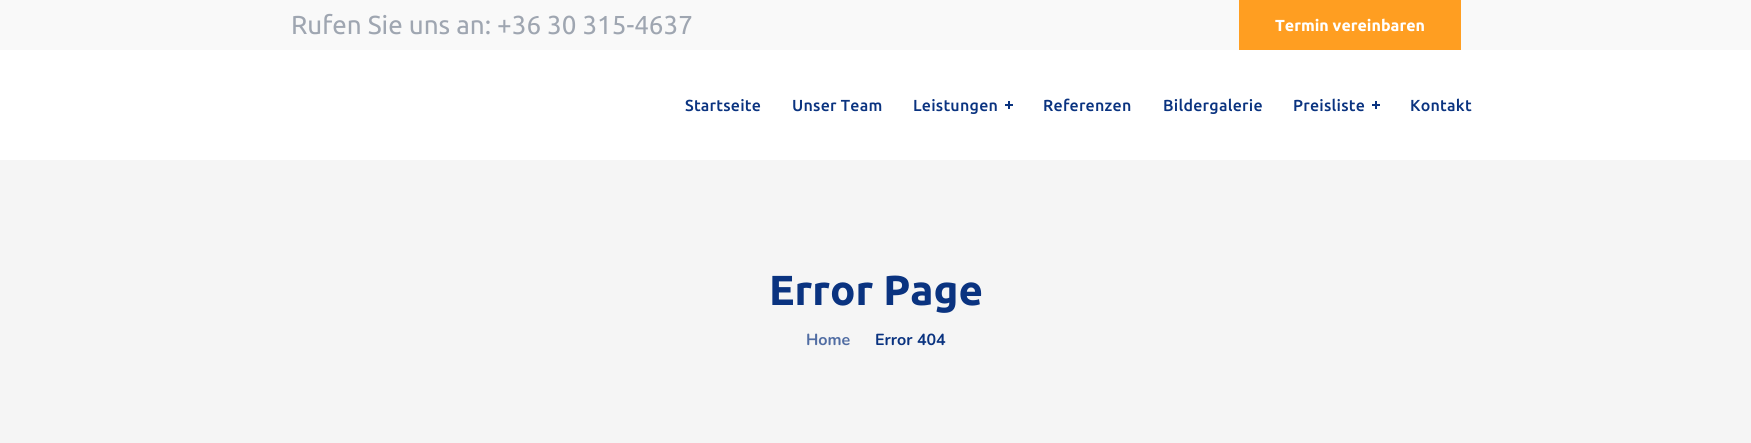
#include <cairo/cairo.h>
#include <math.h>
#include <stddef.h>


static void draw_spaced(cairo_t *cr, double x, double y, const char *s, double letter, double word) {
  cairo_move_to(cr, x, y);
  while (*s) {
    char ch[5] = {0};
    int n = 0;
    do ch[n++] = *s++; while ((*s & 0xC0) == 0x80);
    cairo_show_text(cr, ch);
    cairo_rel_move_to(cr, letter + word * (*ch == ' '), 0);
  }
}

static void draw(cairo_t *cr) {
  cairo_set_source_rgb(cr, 1, 1, 1);
  cairo_paint(cr);
  cairo_set_source_rgb(cr, 249 / 255.0, 249 / 255.0, 249 / 255.0);
  cairo_rectangle(cr, 0, 0, 1751, 50);
  cairo_fill(cr);
  cairo_set_source_rgb(cr, 1, 158 / 255.0, 33 / 255.0);
  cairo_rectangle(cr, 1239, 0, 222, 50);
  cairo_fill(cr);
  cairo_set_source_rgb(cr, 10 / 255.0, 51 / 255.0, 128 / 255.0);
  cairo_rectangle(cr, 1005, 104, 8, 2);
  cairo_fill(cr);
  cairo_rectangle(cr, 1008, 101, 2, 8);
  cairo_fill(cr);
  cairo_rectangle(cr, 1372, 104, 8, 2);
  cairo_fill(cr);
  cairo_rectangle(cr, 1375, 101, 2, 8);
  cairo_fill(cr);
  cairo_set_source_rgb(cr, 245 / 255.0, 245 / 255.0, 245 / 255.0);
  cairo_rectangle(cr, 0, 160, 1751, 283);
  cairo_fill(cr);
  cairo_select_font_face(cr, "Ubuntu", CAIRO_FONT_SLANT_NORMAL, CAIRO_FONT_WEIGHT_NORMAL);
  cairo_set_font_size(cr, 26);
  cairo_set_source_rgb(cr, 159 / 255.0, 166 / 255.0, 177 / 255.0);
  cairo_move_to(cr, 291, 34);
  cairo_show_text(cr, "Rufen Sie uns an: +36 30 315-4637");
  cairo_select_font_face(cr, "Ubuntu", CAIRO_FONT_SLANT_NORMAL, CAIRO_FONT_WEIGHT_BOLD);
  cairo_set_font_size(cr, 16);
  cairo_set_source_rgb(cr, 1, 1, 1);
  cairo_move_to(cr, 1275, 31);
  cairo_show_text(cr, "Termin vereinbaren");
  cairo_select_font_face(cr, "Ubuntu Medium", CAIRO_FONT_SLANT_NORMAL, CAIRO_FONT_WEIGHT_NORMAL);
  cairo_set_source_rgb(cr, 10 / 255.0, 51 / 255.0, 128 / 255.0);
  draw_spaced(cr, 685, 111, "Startseite", 0.25, 0);
  draw_spaced(cr, 792, 111, "Unser Team", 0.25, 0);
  draw_spaced(cr, 913, 111, "Leistungen", 0.25, 0);
  draw_spaced(cr, 1043, 111, "Referenzen", 0.25, 0);
  draw_spaced(cr, 1163, 111, "Bildergalerie", 0.25, 0);
  draw_spaced(cr, 1293, 111, "Preisliste", 0.25, 0);
  draw_spaced(cr, 1410, 111, "Kontakt", 0.25, 0);
  cairo_select_font_face(cr, "Ubuntu", CAIRO_FONT_SLANT_NORMAL, CAIRO_FONT_WEIGHT_BOLD);
  cairo_set_font_size(cr, 42);
  cairo_move_to(cr, 769, 305);
  cairo_show_text(cr, "Error Page");
  cairo_select_font_face(cr, "Nunito", CAIRO_FONT_SLANT_NORMAL, CAIRO_FONT_WEIGHT_BOLD);
  cairo_set_font_size(cr, 16);
  cairo_set_source_rgb(cr, 81 / 255.0, 109 / 255.0, 163 / 255.0);
  cairo_move_to(cr, 806, 345);
  cairo_show_text(cr, "Home");
  cairo_set_source_rgb(cr, 10 / 255.0, 51 / 255.0, 128 / 255.0);
  cairo_move_to(cr, 875, 345);
  cairo_show_text(cr, "Error 404");
}

int main(void) {
  cairo_surface_t *surface = cairo_image_surface_create(CAIRO_FORMAT_RGB24, 1751, 443);
  cairo_t *cr = cairo_create(surface);
  cairo_font_options_t *options = cairo_font_options_create();
  cairo_font_options_set_hint_metrics(options, CAIRO_HINT_METRICS_OFF);
  cairo_font_options_set_hint_style(options, CAIRO_HINT_STYLE_NONE);
  cairo_set_font_options(cr, options);
  cairo_set_miter_limit(cr, 4);
  draw(cr);
  cairo_surface_write_to_png(surface, "out.png");
  cairo_font_options_destroy(options);
  cairo_destroy(cr);
  cairo_surface_destroy(surface);
  return 0;
}
